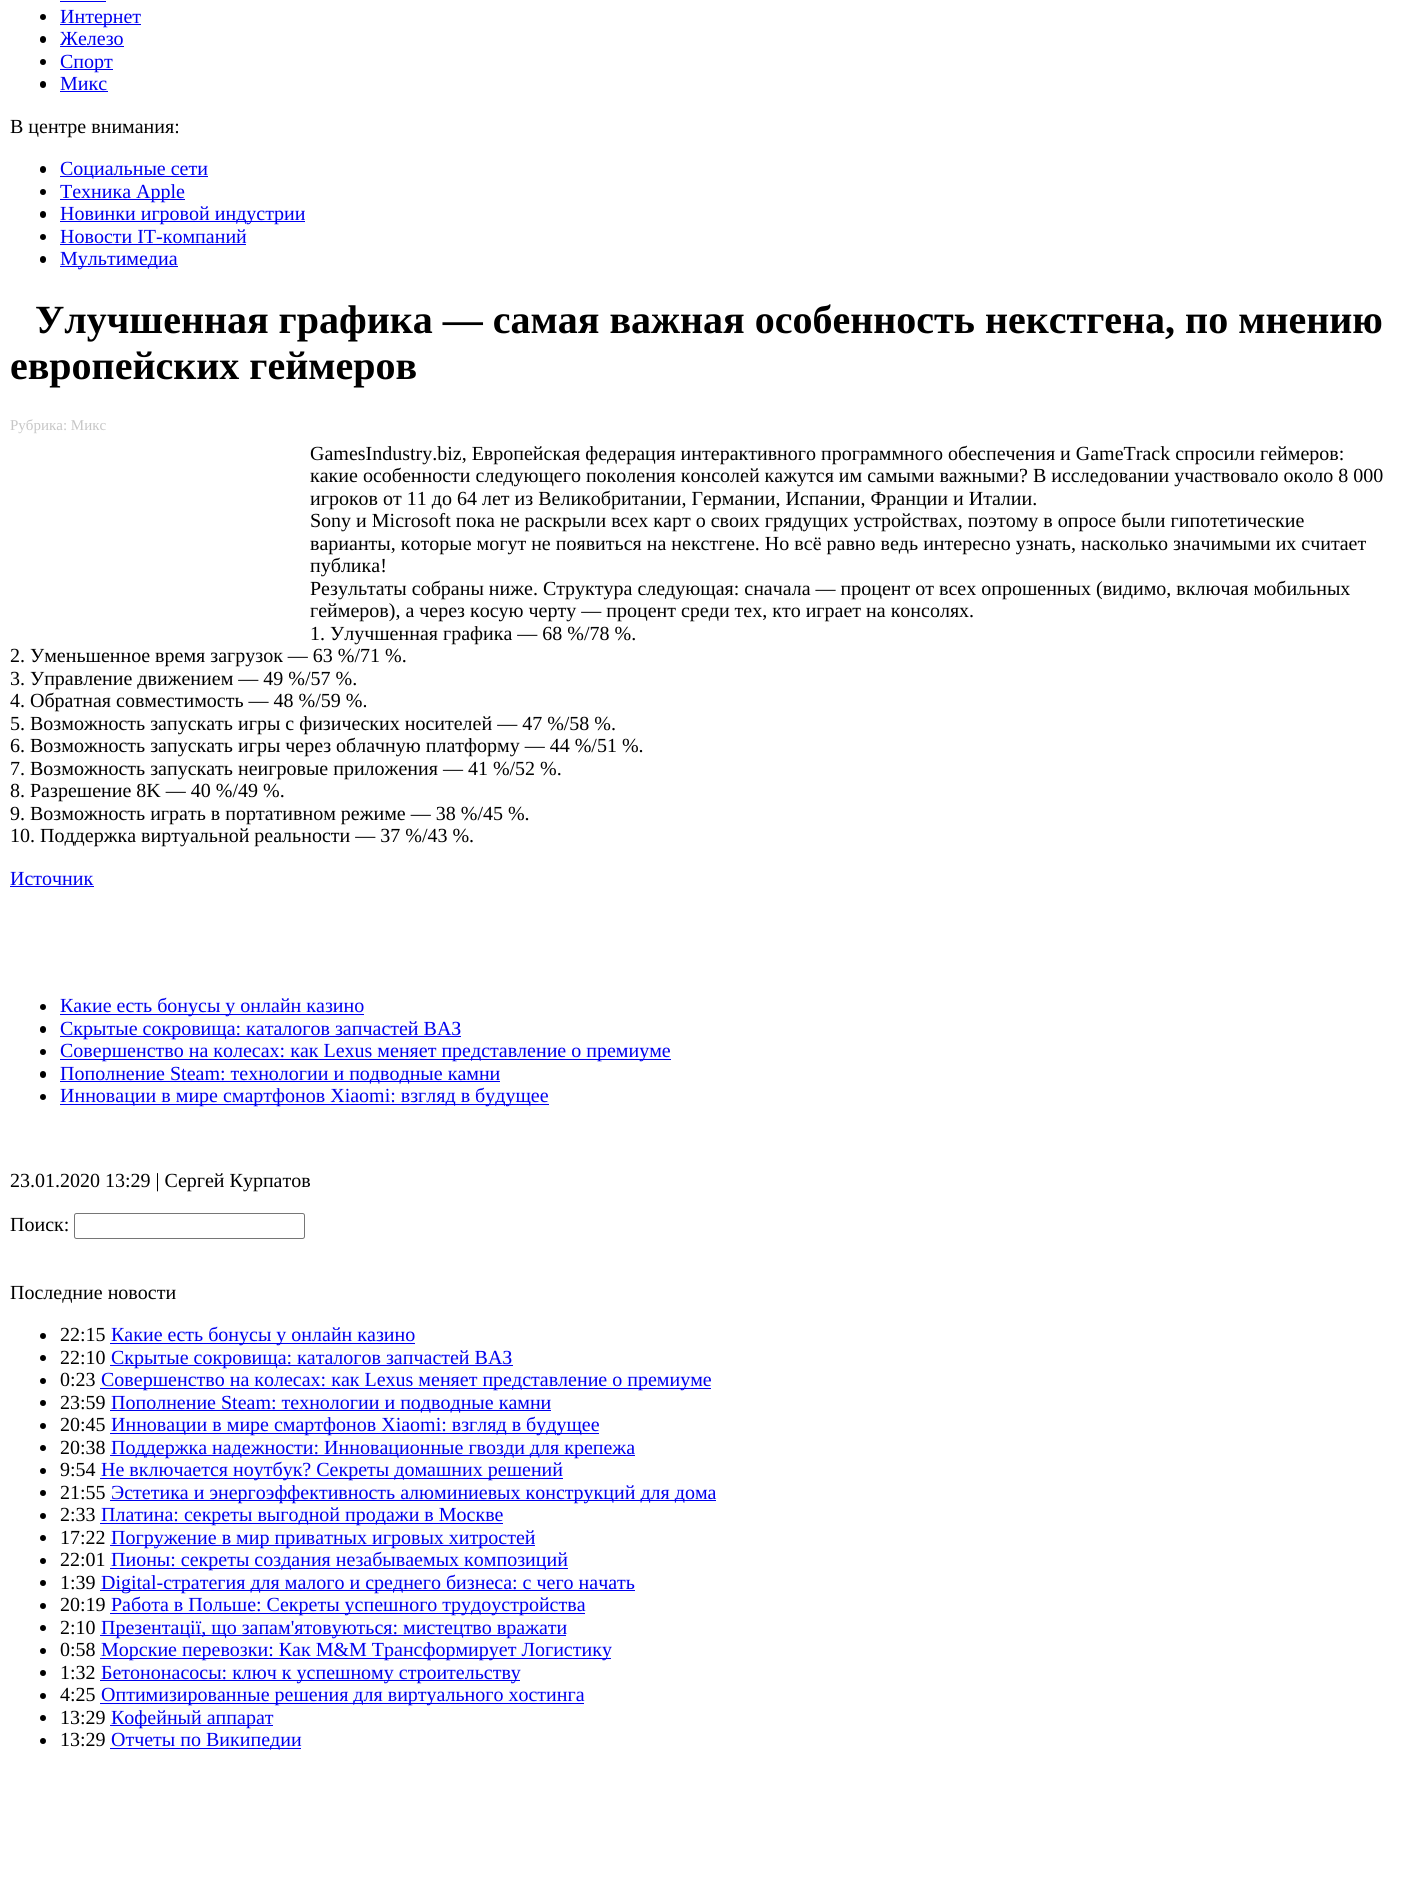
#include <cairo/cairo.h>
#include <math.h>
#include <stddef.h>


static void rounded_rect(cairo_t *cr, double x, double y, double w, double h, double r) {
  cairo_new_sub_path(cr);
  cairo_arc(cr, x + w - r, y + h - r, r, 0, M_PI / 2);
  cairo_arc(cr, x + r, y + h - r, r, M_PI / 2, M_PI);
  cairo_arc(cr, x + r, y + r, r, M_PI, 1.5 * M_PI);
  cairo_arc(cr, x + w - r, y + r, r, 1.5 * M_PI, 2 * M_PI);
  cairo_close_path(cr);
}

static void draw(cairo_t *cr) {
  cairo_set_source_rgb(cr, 1, 1, 1);
  cairo_paint(cr);
  cairo_set_source_rgb(cr, 0, 0, 238 / 255.0);
  cairo_rectangle(cr, 60, 1, 46, 1);
  cairo_fill(cr);
  cairo_set_source_rgb(cr, 0, 0, 0);
  cairo_arc(cr, 43, 17, 3, 0, 2 * M_PI);
  cairo_fill(cr);
  cairo_set_source_rgb(cr, 0, 0, 238 / 255.0);
  cairo_rectangle(cr, 60, 24, 81, 1);
  cairo_fill(cr);
  cairo_set_source_rgb(cr, 0, 0, 0);
  rounded_rect(cr, 40, 36, 6, 7, 3);
  cairo_fill(cr);
  cairo_set_source_rgb(cr, 0, 0, 238 / 255.0);
  cairo_rectangle(cr, 60, 46, 64, 1);
  cairo_fill(cr);
  cairo_set_source_rgb(cr, 0, 0, 0);
  cairo_arc(cr, 43, 62, 3, 0, 2 * M_PI);
  cairo_fill(cr);
  cairo_set_source_rgb(cr, 0, 0, 238 / 255.0);
  cairo_rectangle(cr, 60, 69, 53, 1);
  cairo_fill(cr);
  cairo_set_source_rgb(cr, 0, 0, 0);
  rounded_rect(cr, 40, 81, 6, 7, 3);
  cairo_fill(cr);
  cairo_set_source_rgb(cr, 0, 0, 238 / 255.0);
  cairo_rectangle(cr, 60, 91, 48, 1);
  cairo_fill(cr);
  cairo_set_source_rgb(cr, 0, 0, 0);
  rounded_rect(cr, 40, 166, 6, 7, 3);
  cairo_fill(cr);
  cairo_set_source_rgb(cr, 0, 0, 238 / 255.0);
  cairo_rectangle(cr, 60, 176, 148, 1);
  cairo_fill(cr);
  cairo_set_source_rgb(cr, 0, 0, 0);
  cairo_arc(cr, 43, 192, 3, 0, 2 * M_PI);
  cairo_fill(cr);
  cairo_set_source_rgb(cr, 0, 0, 238 / 255.0);
  cairo_rectangle(cr, 60, 199, 125, 1);
  cairo_fill(cr);
  cairo_set_source_rgb(cr, 0, 0, 0);
  rounded_rect(cr, 40, 211, 6, 7, 3);
  cairo_fill(cr);
  cairo_set_source_rgb(cr, 0, 0, 238 / 255.0);
  cairo_rectangle(cr, 60, 221, 245, 1);
  cairo_fill(cr);
  cairo_set_source_rgb(cr, 0, 0, 0);
  cairo_arc(cr, 43, 237, 3, 0, 2 * M_PI);
  cairo_fill(cr);
  cairo_set_source_rgb(cr, 0, 0, 238 / 255.0);
  cairo_rectangle(cr, 60, 244, 186, 1);
  cairo_fill(cr);
  cairo_set_source_rgb(cr, 0, 0, 0);
  rounded_rect(cr, 40, 256, 6, 7, 3);
  cairo_fill(cr);
  cairo_set_source_rgb(cr, 0, 0, 238 / 255.0);
  cairo_rectangle(cr, 60, 266, 118, 1);
  cairo_fill(cr);
  cairo_rectangle(cr, 10, 886, 84, 1);
  cairo_fill(cr);
  cairo_set_source_rgb(cr, 0, 0, 0);
  cairo_arc(cr, 43, 1007, 3, 0, 2 * M_PI);
  cairo_fill(cr);
  cairo_set_source_rgb(cr, 0, 0, 238 / 255.0);
  cairo_rectangle(cr, 60, 1014, 304, 1);
  cairo_fill(cr);
  cairo_set_source_rgb(cr, 0, 0, 0);
  rounded_rect(cr, 40, 1026, 6, 7, 3);
  cairo_fill(cr);
  cairo_set_source_rgb(cr, 0, 0, 238 / 255.0);
  cairo_rectangle(cr, 60, 1036, 401, 1);
  cairo_fill(cr);
  cairo_set_source_rgb(cr, 0, 0, 0);
  cairo_arc(cr, 43, 1052, 3, 0, 2 * M_PI);
  cairo_fill(cr);
  cairo_set_source_rgb(cr, 0, 0, 238 / 255.0);
  cairo_rectangle(cr, 60, 1059, 611, 1);
  cairo_fill(cr);
  cairo_set_source_rgb(cr, 0, 0, 0);
  rounded_rect(cr, 40, 1071, 6, 7, 3);
  cairo_fill(cr);
  cairo_set_source_rgb(cr, 0, 0, 238 / 255.0);
  cairo_rectangle(cr, 60, 1081, 440, 1);
  cairo_fill(cr);
  cairo_set_source_rgb(cr, 0, 0, 0);
  cairo_arc(cr, 43, 1097, 3, 0, 2 * M_PI);
  cairo_fill(cr);
  cairo_set_source_rgb(cr, 0, 0, 238 / 255.0);
  cairo_rectangle(cr, 60, 1104, 489, 1);
  cairo_fill(cr);
  rounded_rect(cr, 74.5, 1213.5, 230, 25, 2);
  cairo_set_source_rgb(cr, 118 / 255.0, 118 / 255.0, 118 / 255.0);
  cairo_set_line_width(cr, 1);
  cairo_stroke(cr);
  cairo_set_source_rgb(cr, 0, 0, 0);
  cairo_arc(cr, 43, 1336, 3, 0, 2 * M_PI);
  cairo_fill(cr);
  cairo_set_source_rgb(cr, 0, 0, 238 / 255.0);
  cairo_rectangle(cr, 110, 1343, 305, 1);
  cairo_fill(cr);
  cairo_set_source_rgb(cr, 0, 0, 0);
  cairo_arc(cr, 43, 1358, 3, 0, 2 * M_PI);
  cairo_fill(cr);
  cairo_set_source_rgb(cr, 0, 0, 238 / 255.0);
  cairo_rectangle(cr, 110, 1365, 403, 1);
  cairo_fill(cr);
  cairo_set_source_rgb(cr, 0, 0, 0);
  cairo_arc(cr, 43, 1381, 3, 0, 2 * M_PI);
  cairo_fill(cr);
  cairo_set_source_rgb(cr, 0, 0, 238 / 255.0);
  cairo_rectangle(cr, 100, 1388, 611, 1);
  cairo_fill(cr);
  cairo_set_source_rgb(cr, 0, 0, 0);
  cairo_arc(cr, 43, 1403, 3, 0, 2 * M_PI);
  cairo_fill(cr);
  cairo_set_source_rgb(cr, 0, 0, 238 / 255.0);
  cairo_rectangle(cr, 110, 1410, 441, 1);
  cairo_fill(cr);
  cairo_set_source_rgb(cr, 0, 0, 0);
  cairo_arc(cr, 43, 1426, 3, 0, 2 * M_PI);
  cairo_fill(cr);
  cairo_set_source_rgb(cr, 0, 0, 238 / 255.0);
  cairo_rectangle(cr, 110, 1433, 489, 1);
  cairo_fill(cr);
  cairo_set_source_rgb(cr, 0, 0, 0);
  cairo_arc(cr, 43, 1448, 3, 0, 2 * M_PI);
  cairo_fill(cr);
  cairo_set_source_rgb(cr, 0, 0, 238 / 255.0);
  cairo_rectangle(cr, 110, 1455, 525, 1);
  cairo_fill(cr);
  cairo_set_source_rgb(cr, 0, 0, 0);
  cairo_arc(cr, 43, 1471, 3, 0, 2 * M_PI);
  cairo_fill(cr);
  cairo_set_source_rgb(cr, 0, 0, 238 / 255.0);
  cairo_rectangle(cr, 100, 1478, 463, 1);
  cairo_fill(cr);
  cairo_set_source_rgb(cr, 0, 0, 0);
  cairo_arc(cr, 43, 1493, 3, 0, 2 * M_PI);
  cairo_fill(cr);
  cairo_set_source_rgb(cr, 0, 0, 238 / 255.0);
  cairo_rectangle(cr, 110, 1500, 606, 1);
  cairo_fill(cr);
  cairo_set_source_rgb(cr, 0, 0, 0);
  cairo_arc(cr, 43, 1516, 3, 0, 2 * M_PI);
  cairo_fill(cr);
  cairo_set_source_rgb(cr, 0, 0, 238 / 255.0);
  cairo_rectangle(cr, 100, 1523, 403, 1);
  cairo_fill(cr);
  cairo_set_source_rgb(cr, 0, 0, 0);
  cairo_arc(cr, 43, 1538, 3, 0, 2 * M_PI);
  cairo_fill(cr);
  cairo_set_source_rgb(cr, 0, 0, 238 / 255.0);
  cairo_rectangle(cr, 110, 1545, 425, 1);
  cairo_fill(cr);
  cairo_set_source_rgb(cr, 0, 0, 0);
  cairo_arc(cr, 43, 1561, 3, 0, 2 * M_PI);
  cairo_fill(cr);
  cairo_set_source_rgb(cr, 0, 0, 238 / 255.0);
  cairo_rectangle(cr, 110, 1568, 458, 1);
  cairo_fill(cr);
  cairo_set_source_rgb(cr, 0, 0, 0);
  cairo_arc(cr, 43, 1583, 3, 0, 2 * M_PI);
  cairo_fill(cr);
  cairo_set_source_rgb(cr, 0, 0, 238 / 255.0);
  cairo_rectangle(cr, 100, 1590, 535, 1);
  cairo_fill(cr);
  cairo_set_source_rgb(cr, 0, 0, 0);
  cairo_arc(cr, 43, 1606, 3, 0, 2 * M_PI);
  cairo_fill(cr);
  cairo_set_source_rgb(cr, 0, 0, 238 / 255.0);
  cairo_rectangle(cr, 110, 1613, 475, 1);
  cairo_fill(cr);
  cairo_set_source_rgb(cr, 0, 0, 0);
  cairo_arc(cr, 43, 1628, 3, 0, 2 * M_PI);
  cairo_fill(cr);
  cairo_set_source_rgb(cr, 0, 0, 238 / 255.0);
  cairo_rectangle(cr, 100, 1635, 466, 1);
  cairo_fill(cr);
  cairo_set_source_rgb(cr, 0, 0, 0);
  cairo_arc(cr, 43, 1651, 3, 0, 2 * M_PI);
  cairo_fill(cr);
  cairo_set_source_rgb(cr, 0, 0, 238 / 255.0);
  cairo_rectangle(cr, 100, 1658, 511, 1);
  cairo_fill(cr);
  cairo_set_source_rgb(cr, 0, 0, 0);
  cairo_arc(cr, 43, 1673, 3, 0, 2 * M_PI);
  cairo_fill(cr);
  cairo_set_source_rgb(cr, 0, 0, 238 / 255.0);
  cairo_rectangle(cr, 100, 1680, 420, 1);
  cairo_fill(cr);
  cairo_set_source_rgb(cr, 0, 0, 0);
  cairo_arc(cr, 43, 1696, 3, 0, 2 * M_PI);
  cairo_fill(cr);
  cairo_set_source_rgb(cr, 0, 0, 238 / 255.0);
  cairo_rectangle(cr, 100, 1703, 484, 1);
  cairo_fill(cr);
  cairo_set_source_rgb(cr, 0, 0, 0);
  cairo_arc(cr, 43, 1718, 3, 0, 2 * M_PI);
  cairo_fill(cr);
  cairo_set_source_rgb(cr, 0, 0, 238 / 255.0);
  cairo_rectangle(cr, 110, 1725, 163, 1);
  cairo_fill(cr);
  cairo_set_source_rgb(cr, 0, 0, 0);
  cairo_arc(cr, 43, 1741, 3, 0, 2 * M_PI);
  cairo_fill(cr);
  cairo_set_source_rgb(cr, 0, 0, 238 / 255.0);
  cairo_rectangle(cr, 110, 1748, 191, 1);
  cairo_fill(cr);
  cairo_select_font_face(cr, "Liberation Serif", CAIRO_FONT_SLANT_NORMAL, CAIRO_FONT_WEIGHT_NORMAL);
  cairo_set_font_size(cr, 20);
  cairo_move_to(cr, 60, 23);
  cairo_show_text(cr, "Интернет");
  cairo_move_to(cr, 60, 45);
  cairo_show_text(cr, "Железо");
  cairo_move_to(cr, 60, 68);
  cairo_show_text(cr, "Спорт");
  cairo_move_to(cr, 60, 90);
  cairo_show_text(cr, "Микс");
  cairo_set_source_rgb(cr, 0, 0, 0);
  cairo_move_to(cr, 10, 133);
  cairo_show_text(cr, "В центре внимания:");
  cairo_set_source_rgb(cr, 0, 0, 238 / 255.0);
  cairo_move_to(cr, 60, 175);
  cairo_show_text(cr, "Социальные сети");
  cairo_move_to(cr, 60, 198);
  cairo_show_text(cr, "Техника Apple");
  cairo_move_to(cr, 60, 220);
  cairo_show_text(cr, "Новинки игровой индустрии");
  cairo_move_to(cr, 60, 243);
  cairo_show_text(cr, "Новости IT-компаний");
  cairo_move_to(cr, 60, 265);
  cairo_show_text(cr, "Мультимедиа");
  cairo_select_font_face(cr, "Liberation Serif", CAIRO_FONT_SLANT_NORMAL, CAIRO_FONT_WEIGHT_BOLD);
  cairo_set_font_size(cr, 40);
  cairo_set_source_rgb(cr, 0, 0, 0);
  cairo_move_to(cr, 35, 333);
  cairo_show_text(cr, "Улучшенная графика — самая важная особенность некстгена, по мнению");
  cairo_move_to(cr, 10, 379);
  cairo_show_text(cr, "европейских геймеров");
  cairo_select_font_face(cr, "Liberation Serif", CAIRO_FONT_SLANT_NORMAL, CAIRO_FONT_WEIGHT_NORMAL);
  cairo_set_font_size(cr, 15);
  cairo_set_source_rgb(cr, 198 / 255.0, 198 / 255.0, 198 / 255.0);
  cairo_move_to(cr, 10, 430);
  cairo_show_text(cr, "Рубрика: Микс");
  cairo_set_font_size(cr, 20);
  cairo_set_source_rgb(cr, 0, 0, 0);
  cairo_move_to(cr, 310, 460);
  cairo_show_text(cr, "GamesIndustry.biz, Европейская федерация интерактивного программного обеспечения и GameTrack спросили геймеров:");
  cairo_move_to(cr, 310, 482);
  cairo_show_text(cr, "какие особенности следующего поколения консолей кажутся им самыми важными? В исследовании участвовало около 8 000");
  cairo_move_to(cr, 310, 505);
  cairo_show_text(cr, "игроков от 11 до 64 лет из Великобритании, Германии, Испании, Франции и Италии.");
  cairo_move_to(cr, 310, 527);
  cairo_show_text(cr, "Sony и Microsoft пока не раскрыли всех карт о своих грядущих устройствах, поэтому в опросе были гипотетические");
  cairo_move_to(cr, 310, 550);
  cairo_show_text(cr, "варианты, которые могут не появиться на некстгене. Но всё равно ведь интересно узнать, насколько значимыми их считает");
  cairo_move_to(cr, 310, 572);
  cairo_show_text(cr, "публика!");
  cairo_move_to(cr, 310, 595);
  cairo_show_text(cr, "Результаты собраны ниже. Структура следующая: сначала — процент от всех опрошенных (видимо, включая мобильных");
  cairo_move_to(cr, 310, 617);
  cairo_show_text(cr, "геймеров), а через косую черту — процент среди тех, кто играет на консолях.");
  cairo_move_to(cr, 310, 640);
  cairo_show_text(cr, "1. Улучшенная графика — 68 %/78 %.");
  cairo_move_to(cr, 10, 662);
  cairo_show_text(cr, "2. Уменьшенное время загрузок — 63 %/71 %.");
  cairo_move_to(cr, 10, 685);
  cairo_show_text(cr, "3. Управление движением — 49 %/57 %.");
  cairo_move_to(cr, 10, 707);
  cairo_show_text(cr, "4. Обратная совместимость — 48 %/59 %.");
  cairo_move_to(cr, 10, 730);
  cairo_show_text(cr, "5. Возможность запускать игры с физических носителей — 47 %/58 %.");
  cairo_move_to(cr, 10, 752);
  cairo_show_text(cr, "6. Возможность запускать игры через облачную платформу — 44 %/51 %.");
  cairo_move_to(cr, 10, 775);
  cairo_show_text(cr, "7. Возможность запускать неигровые приложения — 41 %/52 %.");
  cairo_move_to(cr, 10, 797);
  cairo_show_text(cr, "8. Разрешение 8K — 40 %/49 %.");
  cairo_move_to(cr, 10, 820);
  cairo_show_text(cr, "9. Возможность играть в портативном режиме — 38 %/45 %.");
  cairo_move_to(cr, 10, 842);
  cairo_show_text(cr, "10. Поддержка виртуальной реальности — 37 %/43 %.");
  cairo_set_source_rgb(cr, 0, 0, 238 / 255.0);
  cairo_move_to(cr, 10, 885);
  cairo_show_text(cr, "Источник");
  cairo_move_to(cr, 60, 1012);
  cairo_show_text(cr, "Какие есть бонусы у онлайн казино");
  cairo_move_to(cr, 60, 1035);
  cairo_show_text(cr, "Скрытые сокровища: каталогов запчастей ВАЗ");
  cairo_move_to(cr, 60, 1057);
  cairo_show_text(cr, "Совершенство на колесах: как Lexus меняет представление о премиуме");
  cairo_move_to(cr, 60, 1080);
  cairo_show_text(cr, "Пополнение Steam: технологии и подводные камни");
  cairo_move_to(cr, 60, 1102);
  cairo_show_text(cr, "Инновации в мире смартфонов Xiaomi: взгляд в будущее");
  cairo_set_source_rgb(cr, 0, 0, 0);
  cairo_move_to(cr, 10, 1187);
  cairo_show_text(cr, "23.01.2020 13:29 | Сергей Курпатов");
  cairo_move_to(cr, 10, 1231);
  cairo_show_text(cr, "Поиск:");
  cairo_move_to(cr, 10, 1299);
  cairo_show_text(cr, "Последние новости");
  cairo_move_to(cr, 60, 1341);
  cairo_show_text(cr, "22:15");
  cairo_set_source_rgb(cr, 0, 0, 238 / 255.0);
  cairo_move_to(cr, 111, 1341);
  cairo_show_text(cr, "Какие есть бонусы у онлайн казино");
  cairo_set_source_rgb(cr, 0, 0, 0);
  cairo_move_to(cr, 60, 1364);
  cairo_show_text(cr, "22:10");
  cairo_set_source_rgb(cr, 0, 0, 238 / 255.0);
  cairo_move_to(cr, 111, 1364);
  cairo_show_text(cr, "Скрытые сокровища: каталогов запчастей ВАЗ");
  cairo_set_source_rgb(cr, 0, 0, 0);
  cairo_move_to(cr, 60, 1386);
  cairo_show_text(cr, "0:23");
  cairo_set_source_rgb(cr, 0, 0, 238 / 255.0);
  cairo_move_to(cr, 101, 1386);
  cairo_show_text(cr, "Совершенство на колесах: как Lexus меняет представление о премиуме");
  cairo_set_source_rgb(cr, 0, 0, 0);
  cairo_move_to(cr, 60, 1409);
  cairo_show_text(cr, "23:59");
  cairo_set_source_rgb(cr, 0, 0, 238 / 255.0);
  cairo_move_to(cr, 111, 1409);
  cairo_show_text(cr, "Пополнение Steam: технологии и подводные камни");
  cairo_set_source_rgb(cr, 0, 0, 0);
  cairo_move_to(cr, 60, 1431);
  cairo_show_text(cr, "20:45");
  cairo_set_source_rgb(cr, 0, 0, 238 / 255.0);
  cairo_move_to(cr, 111, 1431);
  cairo_show_text(cr, "Инновации в мире смартфонов Xiaomi: взгляд в будущее");
  cairo_set_source_rgb(cr, 0, 0, 0);
  cairo_move_to(cr, 60, 1454);
  cairo_show_text(cr, "20:38");
  cairo_set_source_rgb(cr, 0, 0, 238 / 255.0);
  cairo_move_to(cr, 111, 1454);
  cairo_show_text(cr, "Поддержка надежности: Инновационные гвозди для крепежа");
  cairo_set_source_rgb(cr, 0, 0, 0);
  cairo_move_to(cr, 60, 1476);
  cairo_show_text(cr, "9:54");
  cairo_set_source_rgb(cr, 0, 0, 238 / 255.0);
  cairo_move_to(cr, 101, 1476);
  cairo_show_text(cr, "Не включается ноутбук? Секреты домашних решений");
  cairo_set_source_rgb(cr, 0, 0, 0);
  cairo_move_to(cr, 60, 1499);
  cairo_show_text(cr, "21:55");
  cairo_set_source_rgb(cr, 0, 0, 238 / 255.0);
  cairo_move_to(cr, 111, 1499);
  cairo_show_text(cr, "Эстетика и энергоэффективность алюминиевых конструкций для дома");
  cairo_set_source_rgb(cr, 0, 0, 0);
  cairo_move_to(cr, 60, 1521);
  cairo_show_text(cr, "2:33");
  cairo_set_source_rgb(cr, 0, 0, 238 / 255.0);
  cairo_move_to(cr, 101, 1521);
  cairo_show_text(cr, "Платина: секреты выгодной продажи в Москве");
  cairo_set_source_rgb(cr, 0, 0, 0);
  cairo_move_to(cr, 60, 1544);
  cairo_show_text(cr, "17:22");
  cairo_set_source_rgb(cr, 0, 0, 238 / 255.0);
  cairo_move_to(cr, 111, 1544);
  cairo_show_text(cr, "Погружение в мир приватных игровых хитростей");
  cairo_set_source_rgb(cr, 0, 0, 0);
  cairo_move_to(cr, 60, 1566);
  cairo_show_text(cr, "22:01");
  cairo_set_source_rgb(cr, 0, 0, 238 / 255.0);
  cairo_move_to(cr, 111, 1566);
  cairo_show_text(cr, "Пионы: секреты создания незабываемых композиций");
  cairo_set_source_rgb(cr, 0, 0, 0);
  cairo_move_to(cr, 60, 1589);
  cairo_show_text(cr, "1:39");
  cairo_set_source_rgb(cr, 0, 0, 238 / 255.0);
  cairo_move_to(cr, 101, 1589);
  cairo_show_text(cr, "Digital-стратегия для малого и среднего бизнеса: с чего начать");
  cairo_set_source_rgb(cr, 0, 0, 0);
  cairo_move_to(cr, 60, 1611);
  cairo_show_text(cr, "20:19");
  cairo_set_source_rgb(cr, 0, 0, 238 / 255.0);
  cairo_move_to(cr, 111, 1611);
  cairo_show_text(cr, "Работа в Польше: Секреты успешного трудоустройства");
  cairo_set_source_rgb(cr, 0, 0, 0);
  cairo_move_to(cr, 60, 1634);
  cairo_show_text(cr, "2:10");
  cairo_set_source_rgb(cr, 0, 0, 238 / 255.0);
  cairo_move_to(cr, 101, 1634);
  cairo_show_text(cr, "Презентації, що запам'ятовуються: мистецтво вражати");
  cairo_set_source_rgb(cr, 0, 0, 0);
  cairo_move_to(cr, 60, 1656);
  cairo_show_text(cr, "0:58");
  cairo_set_source_rgb(cr, 0, 0, 238 / 255.0);
  cairo_move_to(cr, 101, 1656);
  cairo_show_text(cr, "Морские перевозки: Как M&M Трансформирует Логистику");
  cairo_set_source_rgb(cr, 0, 0, 0);
  cairo_move_to(cr, 60, 1679);
  cairo_show_text(cr, "1:32");
  cairo_set_source_rgb(cr, 0, 0, 238 / 255.0);
  cairo_move_to(cr, 101, 1679);
  cairo_show_text(cr, "Бетононасосы: ключ к успешному строительству");
  cairo_set_source_rgb(cr, 0, 0, 0);
  cairo_move_to(cr, 60, 1701);
  cairo_show_text(cr, "4:25");
  cairo_set_source_rgb(cr, 0, 0, 238 / 255.0);
  cairo_move_to(cr, 101, 1701);
  cairo_show_text(cr, "Оптимизированные решения для виртуального хостинга");
  cairo_set_source_rgb(cr, 0, 0, 0);
  cairo_move_to(cr, 60, 1724);
  cairo_show_text(cr, "13:29");
  cairo_set_source_rgb(cr, 0, 0, 238 / 255.0);
  cairo_move_to(cr, 111, 1724);
  cairo_show_text(cr, "Кофейный аппарат");
  cairo_set_source_rgb(cr, 0, 0, 0);
  cairo_move_to(cr, 60, 1746);
  cairo_show_text(cr, "13:29");
  cairo_set_source_rgb(cr, 0, 0, 238 / 255.0);
  cairo_move_to(cr, 111, 1746);
  cairo_show_text(cr, "Отчеты по Википедии");
}

int main(void) {
  cairo_surface_t *surface = cairo_image_surface_create(CAIRO_FORMAT_RGB24, 1404, 1888);
  cairo_t *cr = cairo_create(surface);
  cairo_font_options_t *options = cairo_font_options_create();
  cairo_font_options_set_hint_metrics(options, CAIRO_HINT_METRICS_OFF);
  cairo_font_options_set_hint_style(options, CAIRO_HINT_STYLE_NONE);
  cairo_set_font_options(cr, options);
  cairo_set_miter_limit(cr, 4);
  draw(cr);
  cairo_surface_write_to_png(surface, "out.png");
  cairo_font_options_destroy(options);
  cairo_destroy(cr);
  cairo_surface_destroy(surface);
  return 0;
}
